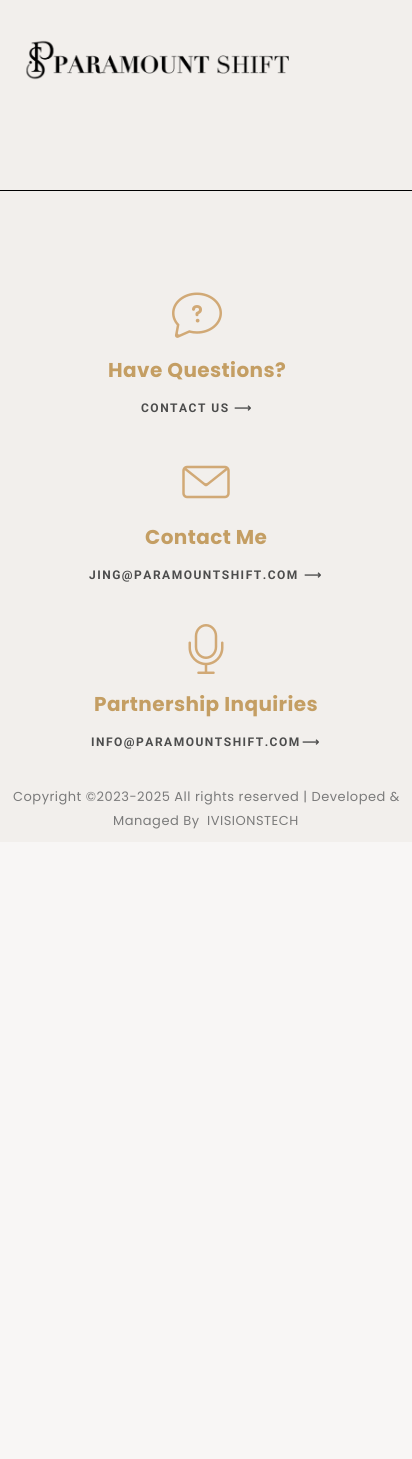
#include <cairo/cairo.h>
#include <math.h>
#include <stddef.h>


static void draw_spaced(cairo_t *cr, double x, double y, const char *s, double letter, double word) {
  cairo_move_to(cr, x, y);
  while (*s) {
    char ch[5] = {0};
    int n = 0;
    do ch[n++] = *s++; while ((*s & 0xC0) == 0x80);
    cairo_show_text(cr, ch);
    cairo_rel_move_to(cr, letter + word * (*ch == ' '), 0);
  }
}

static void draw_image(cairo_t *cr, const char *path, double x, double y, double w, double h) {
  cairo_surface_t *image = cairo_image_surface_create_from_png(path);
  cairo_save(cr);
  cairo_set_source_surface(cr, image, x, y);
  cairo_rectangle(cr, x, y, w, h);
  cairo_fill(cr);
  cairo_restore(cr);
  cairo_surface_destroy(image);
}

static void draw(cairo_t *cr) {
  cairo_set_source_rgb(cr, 248 / 255.0, 246 / 255.0, 245 / 255.0);
  cairo_paint(cr);
  cairo_set_source_rgb(cr, 242 / 255.0, 239 / 255.0, 236 / 255.0);
  cairo_rectangle(cr, 0, 0, 412, 190);
  cairo_fill(cr);
  cairo_set_source_rgb(cr, 0, 0, 0);
  cairo_rectangle(cr, 0, 190, 412, 1);
  cairo_fill(cr);
  draw_image(cr, "images/1.png", 26, 40, 263, 40);
  cairo_set_source_rgb(cr, 242 / 255.0, 239 / 255.0, 236 / 255.0);
  cairo_rectangle(cr, 0, 191, 412, 651);
  cairo_fill(cr);
  draw_image(cr, "images/2.png", 172, 292, 50, 46);
  draw_image(cr, "images/3.png", 182, 465, 48, 34);
  draw_image(cr, "images/4.png", 188, 624, 36, 50);
  cairo_select_font_face(cr, "Poppins", CAIRO_FONT_SLANT_NORMAL, CAIRO_FONT_WEIGHT_BOLD);
  cairo_set_font_size(cr, 20);
  cairo_set_source_rgb(cr, 196 / 255.0, 158 / 255.0, 99 / 255.0);
  draw_spaced(cr, 108, 377, "Have Questions?", 0.4, 0);
  cairo_select_font_face(cr, "Roboto", CAIRO_FONT_SLANT_NORMAL, CAIRO_FONT_WEIGHT_BOLD);
  cairo_set_font_size(cr, 12);
  cairo_set_source_rgb(cr, 76 / 255.0, 76 / 255.0, 76 / 255.0);
  draw_spaced(cr, 141, 412, "CONTACT US", 1.5, 0);
  cairo_select_font_face(cr, "DejaVu Sans", CAIRO_FONT_SLANT_NORMAL, CAIRO_FONT_WEIGHT_BOLD);
  draw_spaced(cr, 234, 412, "⟶", 1.5, 0);
  cairo_select_font_face(cr, "Poppins", CAIRO_FONT_SLANT_NORMAL, CAIRO_FONT_WEIGHT_BOLD);
  cairo_set_font_size(cr, 20);
  cairo_set_source_rgb(cr, 196 / 255.0, 158 / 255.0, 99 / 255.0);
  draw_spaced(cr, 145, 544, "Contact Me", 0.4, 0);
  cairo_select_font_face(cr, "Roboto", CAIRO_FONT_SLANT_NORMAL, CAIRO_FONT_WEIGHT_BOLD);
  cairo_set_font_size(cr, 12);
  cairo_set_source_rgb(cr, 76 / 255.0, 76 / 255.0, 76 / 255.0);
  draw_spaced(cr, 89, 579, "JING@PARAMOUNTSHIFT.COM", 1.5, 0);
  cairo_select_font_face(cr, "DejaVu Sans", CAIRO_FONT_SLANT_NORMAL, CAIRO_FONT_WEIGHT_BOLD);
  draw_spaced(cr, 304, 579, "⟶", 1.5, 0);
  cairo_select_font_face(cr, "Poppins", CAIRO_FONT_SLANT_NORMAL, CAIRO_FONT_WEIGHT_BOLD);
  cairo_set_font_size(cr, 20);
  cairo_set_source_rgb(cr, 196 / 255.0, 158 / 255.0, 99 / 255.0);
  draw_spaced(cr, 94, 711, "Partnership Inquiries", 0.4, 0);
  cairo_select_font_face(cr, "Roboto", CAIRO_FONT_SLANT_NORMAL, CAIRO_FONT_WEIGHT_BOLD);
  cairo_set_font_size(cr, 12);
  cairo_set_source_rgb(cr, 76 / 255.0, 76 / 255.0, 76 / 255.0);
  draw_spaced(cr, 91, 746, "INFO@PARAMOUNTSHIFT.COM", 1.5, 0);
  cairo_select_font_face(cr, "DejaVu Sans", CAIRO_FONT_SLANT_NORMAL, CAIRO_FONT_WEIGHT_BOLD);
  draw_spaced(cr, 302, 746, "⟶", 1.5, 0);
  cairo_select_font_face(cr, "Poppins", CAIRO_FONT_SLANT_NORMAL, CAIRO_FONT_WEIGHT_NORMAL);
  cairo_set_font_size(cr, 13);
  cairo_set_source_rgb(cr, 122 / 255.0, 122 / 255.0, 122 / 255.0);
  draw_spaced(cr, 13, 801, "Copyright ©2023-2025 All rights reserved | Developed &", 0.5, 0);
  draw_spaced(cr, 113, 825, "Managed By", 0.5, 0);
  draw_spaced(cr, 207, 825, "IVISIONSTECH", 0.5, 0);
}

int main(void) {
  cairo_surface_t *surface = cairo_image_surface_create(CAIRO_FORMAT_RGB24, 412, 1459);
  cairo_t *cr = cairo_create(surface);
  cairo_font_options_t *options = cairo_font_options_create();
  cairo_font_options_set_hint_metrics(options, CAIRO_HINT_METRICS_OFF);
  cairo_font_options_set_hint_style(options, CAIRO_HINT_STYLE_NONE);
  cairo_set_font_options(cr, options);
  cairo_set_miter_limit(cr, 4);
  draw(cr);
  cairo_surface_write_to_png(surface, "out.png");
  cairo_font_options_destroy(options);
  cairo_destroy(cr);
  cairo_surface_destroy(surface);
  return 0;
}
